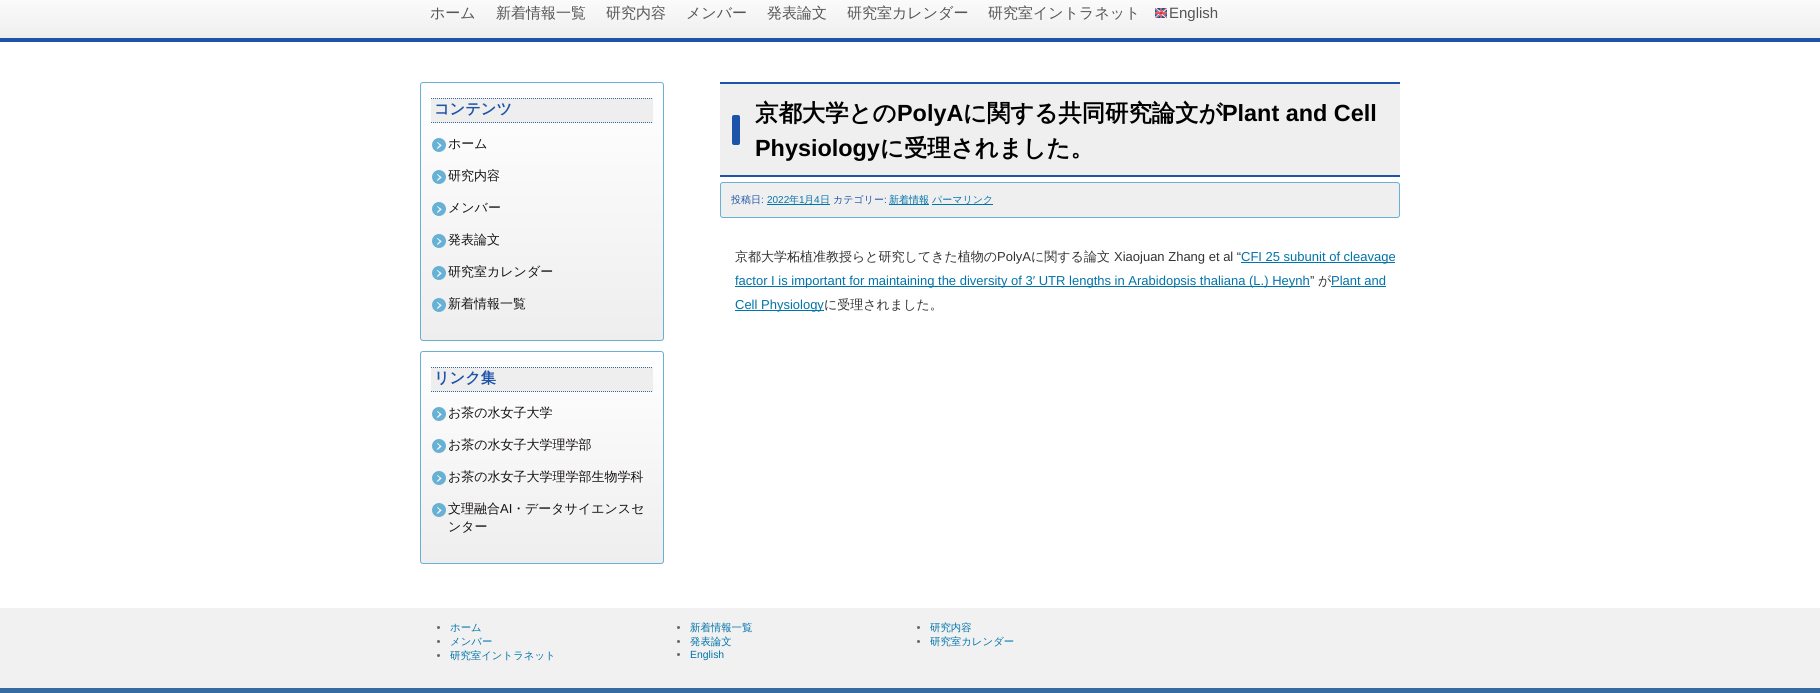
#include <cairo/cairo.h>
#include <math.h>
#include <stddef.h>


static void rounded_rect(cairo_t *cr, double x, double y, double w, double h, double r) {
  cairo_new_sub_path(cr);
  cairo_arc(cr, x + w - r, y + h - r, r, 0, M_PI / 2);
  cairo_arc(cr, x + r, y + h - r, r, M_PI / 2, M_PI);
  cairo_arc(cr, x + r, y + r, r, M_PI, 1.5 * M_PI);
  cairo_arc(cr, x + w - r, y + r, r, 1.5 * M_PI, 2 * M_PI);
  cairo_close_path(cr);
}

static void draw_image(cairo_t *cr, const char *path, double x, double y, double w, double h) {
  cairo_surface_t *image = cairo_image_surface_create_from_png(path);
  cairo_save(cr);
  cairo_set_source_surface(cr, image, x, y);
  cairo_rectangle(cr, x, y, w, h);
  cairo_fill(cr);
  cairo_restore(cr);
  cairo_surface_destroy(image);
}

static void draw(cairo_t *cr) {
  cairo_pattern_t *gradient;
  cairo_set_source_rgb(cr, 1, 1, 1);
  cairo_paint(cr);
  gradient = cairo_pattern_create_linear(910, -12, 910, 38);
  cairo_pattern_add_color_stop_rgba(gradient, 0, 1, 1, 1, 1);
  cairo_pattern_add_color_stop_rgba(gradient, 1, 238 / 255.0, 238 / 255.0, 238 / 255.0, 1);
  cairo_set_source(cr, gradient);
  cairo_pattern_destroy(gradient);
  cairo_rectangle(cr, 0, 0, 1820, 38);
  cairo_fill(cr);
  cairo_set_source_rgb(cr, 29 / 255.0, 83 / 255.0, 169 / 255.0);
  cairo_rectangle(cr, 0, 38, 1820, 4);
  cairo_fill(cr);
  draw_image(cr, "images/1.png", 1155, 8, 12, 10);
  cairo_save(cr);
  rounded_rect(cr, 420, 82, 244, 259, 3);
  cairo_clip(cr);
  gradient = cairo_pattern_create_linear(542, 83, 542, 340);
  cairo_pattern_add_color_stop_rgba(gradient, 0, 1, 1, 1, 1);
  cairo_pattern_add_color_stop_rgba(gradient, 1, 238 / 255.0, 238 / 255.0, 238 / 255.0, 1);
  cairo_set_source(cr, gradient);
  cairo_pattern_destroy(gradient);
  cairo_rectangle(cr, 420, 83, 244, 257);
  cairo_fill(cr);
  cairo_restore(cr);
  rounded_rect(cr, 420.5, 82.5, 243, 258, 2.5);
  cairo_set_source_rgb(cr, 104 / 255.0, 177 / 255.0, 213 / 255.0);
  cairo_set_line_width(cr, 1);
  cairo_stroke(cr);
  cairo_set_source_rgb(cr, 238 / 255.0, 238 / 255.0, 238 / 255.0);
  cairo_rectangle(cr, 431, 98, 222, 25);
  cairo_fill(cr);
  cairo_new_path(cr);
  cairo_move_to(cr, 431, 98.5);
  cairo_line_to(cr, 653, 98.5);
  cairo_set_source_rgb(cr, 54 / 255.0, 107 / 255.0, 161 / 255.0);
  cairo_set_dash(cr, (double[]){1, 1}, 2, 0);
  cairo_stroke(cr);
  cairo_new_path(cr);
  cairo_move_to(cr, 431, 122.5);
  cairo_line_to(cr, 653, 122.5);
  cairo_stroke(cr);
  cairo_set_source_rgb(cr, 104 / 255.0, 177 / 255.0, 213 / 255.0);
  cairo_arc(cr, 439, 145, 7, 0, 2 * M_PI);
  cairo_fill(cr);
  cairo_set_source_rgb(cr, 1, 1, 1);
  cairo_new_path(cr);
  cairo_move_to(cr, 437, 142.5);
  cairo_line_to(cr, 437.5, 142);
  cairo_line_to(cr, 441.5, 145.5);
  cairo_line_to(cr, 440.5, 146);
  cairo_close_path(cr);
  cairo_fill(cr);
  cairo_set_source_rgb(cr, 104 / 255.0, 177 / 255.0, 213 / 255.0);
  cairo_arc(cr, 439, 177, 7, 0, 2 * M_PI);
  cairo_fill(cr);
  cairo_set_source_rgb(cr, 1, 1, 1);
  cairo_new_path(cr);
  cairo_move_to(cr, 437, 148);
  cairo_line_to(cr, 440.5, 144.5);
  cairo_line_to(cr, 441.5, 145.5);
  cairo_line_to(cr, 437.5, 149);
  cairo_close_path(cr);
  cairo_move_to(cr, 437, 174.5);
  cairo_line_to(cr, 437.5, 174);
  cairo_line_to(cr, 441.5, 177.5);
  cairo_line_to(cr, 440.5, 178);
  cairo_close_path(cr);
  cairo_fill(cr);
  cairo_set_source_rgb(cr, 104 / 255.0, 177 / 255.0, 213 / 255.0);
  cairo_arc(cr, 439, 209, 7, 0, 2 * M_PI);
  cairo_fill(cr);
  cairo_set_source_rgb(cr, 1, 1, 1);
  cairo_new_path(cr);
  cairo_move_to(cr, 437, 180);
  cairo_line_to(cr, 440.5, 176.5);
  cairo_line_to(cr, 441.5, 177.5);
  cairo_line_to(cr, 437.5, 181);
  cairo_close_path(cr);
  cairo_move_to(cr, 437, 206.5);
  cairo_line_to(cr, 437.5, 206);
  cairo_line_to(cr, 441.5, 209.5);
  cairo_line_to(cr, 440.5, 210);
  cairo_close_path(cr);
  cairo_fill(cr);
  cairo_set_source_rgb(cr, 104 / 255.0, 177 / 255.0, 213 / 255.0);
  cairo_arc(cr, 439, 241, 7, 0, 2 * M_PI);
  cairo_fill(cr);
  cairo_set_source_rgb(cr, 1, 1, 1);
  cairo_new_path(cr);
  cairo_move_to(cr, 437, 212);
  cairo_line_to(cr, 440.5, 208.5);
  cairo_line_to(cr, 441.5, 209.5);
  cairo_line_to(cr, 437.5, 213);
  cairo_close_path(cr);
  cairo_move_to(cr, 437, 238.5);
  cairo_line_to(cr, 437.5, 238);
  cairo_line_to(cr, 441.5, 241.5);
  cairo_line_to(cr, 440.5, 242);
  cairo_close_path(cr);
  cairo_fill(cr);
  cairo_set_source_rgb(cr, 104 / 255.0, 177 / 255.0, 213 / 255.0);
  cairo_arc(cr, 439, 273, 7, 0, 2 * M_PI);
  cairo_fill(cr);
  cairo_set_source_rgb(cr, 1, 1, 1);
  cairo_new_path(cr);
  cairo_move_to(cr, 437, 244);
  cairo_line_to(cr, 440.5, 240.5);
  cairo_line_to(cr, 441.5, 241.5);
  cairo_line_to(cr, 437.5, 245);
  cairo_close_path(cr);
  cairo_move_to(cr, 437, 270.5);
  cairo_line_to(cr, 437.5, 270);
  cairo_line_to(cr, 441.5, 273.5);
  cairo_line_to(cr, 440.5, 274);
  cairo_close_path(cr);
  cairo_fill(cr);
  cairo_set_source_rgb(cr, 104 / 255.0, 177 / 255.0, 213 / 255.0);
  cairo_arc(cr, 439, 305, 7, 0, 2 * M_PI);
  cairo_fill(cr);
  cairo_set_source_rgb(cr, 1, 1, 1);
  cairo_new_path(cr);
  cairo_move_to(cr, 437, 276);
  cairo_line_to(cr, 440.5, 272.5);
  cairo_line_to(cr, 441.5, 273.5);
  cairo_line_to(cr, 437.5, 277);
  cairo_close_path(cr);
  cairo_move_to(cr, 437, 302.5);
  cairo_line_to(cr, 437.5, 302);
  cairo_line_to(cr, 441.5, 305.5);
  cairo_line_to(cr, 440.5, 306);
  cairo_close_path(cr);
  cairo_fill(cr);
  cairo_new_path(cr);
  cairo_move_to(cr, 437, 308);
  cairo_line_to(cr, 440.5, 304.5);
  cairo_line_to(cr, 441.5, 305.5);
  cairo_line_to(cr, 437.5, 309);
  cairo_close_path(cr);
  cairo_fill(cr);
  cairo_save(cr);
  rounded_rect(cr, 420, 351, 244, 213, 3);
  cairo_clip(cr);
  gradient = cairo_pattern_create_linear(542, 352, 542, 563);
  cairo_pattern_add_color_stop_rgba(gradient, 0, 1, 1, 1, 1);
  cairo_pattern_add_color_stop_rgba(gradient, 1, 238 / 255.0, 238 / 255.0, 238 / 255.0, 1);
  cairo_set_source(cr, gradient);
  cairo_pattern_destroy(gradient);
  cairo_rectangle(cr, 420, 352, 244, 211);
  cairo_fill(cr);
  cairo_restore(cr);
  rounded_rect(cr, 420.5, 351.5, 243, 212, 2.5);
  cairo_set_source_rgb(cr, 104 / 255.0, 177 / 255.0, 213 / 255.0);
  cairo_set_dash(cr, NULL, 0, 0);
  cairo_stroke(cr);
  cairo_set_source_rgb(cr, 238 / 255.0, 238 / 255.0, 238 / 255.0);
  cairo_rectangle(cr, 431, 367, 222, 25);
  cairo_fill(cr);
  cairo_new_path(cr);
  cairo_move_to(cr, 431, 367.5);
  cairo_line_to(cr, 653, 367.5);
  cairo_set_source_rgb(cr, 54 / 255.0, 107 / 255.0, 161 / 255.0);
  cairo_set_dash(cr, (double[]){1, 1}, 2, 0);
  cairo_stroke(cr);
  cairo_new_path(cr);
  cairo_move_to(cr, 431, 391.5);
  cairo_line_to(cr, 653, 391.5);
  cairo_stroke(cr);
  cairo_set_source_rgb(cr, 104 / 255.0, 177 / 255.0, 213 / 255.0);
  cairo_arc(cr, 439, 414, 7, 0, 2 * M_PI);
  cairo_fill(cr);
  cairo_set_source_rgb(cr, 1, 1, 1);
  cairo_new_path(cr);
  cairo_move_to(cr, 437, 411.5);
  cairo_line_to(cr, 437.5, 411);
  cairo_line_to(cr, 441.5, 414.5);
  cairo_line_to(cr, 440.5, 415);
  cairo_close_path(cr);
  cairo_fill(cr);
  cairo_set_source_rgb(cr, 104 / 255.0, 177 / 255.0, 213 / 255.0);
  cairo_arc(cr, 439, 446, 7, 0, 2 * M_PI);
  cairo_fill(cr);
  cairo_set_source_rgb(cr, 1, 1, 1);
  cairo_new_path(cr);
  cairo_move_to(cr, 437, 417);
  cairo_line_to(cr, 440.5, 413.5);
  cairo_line_to(cr, 441.5, 414.5);
  cairo_line_to(cr, 437.5, 418);
  cairo_close_path(cr);
  cairo_move_to(cr, 437, 443.5);
  cairo_line_to(cr, 437.5, 443);
  cairo_line_to(cr, 441.5, 446.5);
  cairo_line_to(cr, 440.5, 447);
  cairo_close_path(cr);
  cairo_fill(cr);
  cairo_set_source_rgb(cr, 104 / 255.0, 177 / 255.0, 213 / 255.0);
  cairo_arc(cr, 439, 478, 7, 0, 2 * M_PI);
  cairo_fill(cr);
  cairo_set_source_rgb(cr, 1, 1, 1);
  cairo_new_path(cr);
  cairo_move_to(cr, 437, 449);
  cairo_line_to(cr, 440.5, 445.5);
  cairo_line_to(cr, 441.5, 446.5);
  cairo_line_to(cr, 437.5, 450);
  cairo_close_path(cr);
  cairo_move_to(cr, 437, 475.5);
  cairo_line_to(cr, 437.5, 475);
  cairo_line_to(cr, 441.5, 478.5);
  cairo_line_to(cr, 440.5, 479);
  cairo_close_path(cr);
  cairo_fill(cr);
  cairo_set_source_rgb(cr, 104 / 255.0, 177 / 255.0, 213 / 255.0);
  cairo_arc(cr, 439, 510, 7, 0, 2 * M_PI);
  cairo_fill(cr);
  cairo_set_source_rgb(cr, 1, 1, 1);
  cairo_new_path(cr);
  cairo_move_to(cr, 437, 481);
  cairo_line_to(cr, 440.5, 477.5);
  cairo_line_to(cr, 441.5, 478.5);
  cairo_line_to(cr, 437.5, 482);
  cairo_close_path(cr);
  cairo_move_to(cr, 437, 507.5);
  cairo_line_to(cr, 437.5, 507);
  cairo_line_to(cr, 441.5, 510.5);
  cairo_line_to(cr, 440.5, 511);
  cairo_close_path(cr);
  cairo_fill(cr);
  cairo_new_path(cr);
  cairo_move_to(cr, 437, 513);
  cairo_line_to(cr, 440.5, 509.5);
  cairo_line_to(cr, 441.5, 510.5);
  cairo_line_to(cr, 437.5, 514);
  cairo_close_path(cr);
  cairo_fill(cr);
  cairo_set_source_rgb(cr, 239 / 255.0, 239 / 255.0, 239 / 255.0);
  cairo_rectangle(cr, 720, 84, 680, 91);
  cairo_fill(cr);
  cairo_set_source_rgb(cr, 29 / 255.0, 83 / 255.0, 169 / 255.0);
  cairo_rectangle(cr, 720, 82, 680, 2);
  cairo_fill(cr);
  cairo_rectangle(cr, 720, 175, 680, 2);
  cairo_fill(cr);
  rounded_rect(cr, 732, 115, 8, 30, 2);
  cairo_fill(cr);
  cairo_set_source_rgb(cr, 239 / 255.0, 239 / 255.0, 239 / 255.0);
  rounded_rect(cr, 720.5, 182.5, 679, 35, 2.5);
  cairo_fill_preserve(cr);
  cairo_set_source_rgb(cr, 104 / 255.0, 177 / 255.0, 213 / 255.0);
  cairo_set_dash(cr, NULL, 0, 0);
  cairo_stroke(cr);
  cairo_set_source_rgb(cr, 0, 115 / 255.0, 170 / 255.0);
  cairo_rectangle(cr, 767, 204, 63, 1);
  cairo_fill(cr);
  cairo_rectangle(cr, 889, 204, 40, 1);
  cairo_fill(cr);
  cairo_rectangle(cr, 932, 204, 61, 1);
  cairo_fill(cr);
  cairo_rectangle(cr, 1241, 262, 154, 1);
  cairo_fill(cr);
  cairo_rectangle(cr, 735, 286, 575, 1);
  cairo_fill(cr);
  cairo_rectangle(cr, 1331, 286, 55, 1);
  cairo_fill(cr);
  cairo_rectangle(cr, 735, 310, 89, 1);
  cairo_fill(cr);
  cairo_set_source_rgb(cr, 54 / 255.0, 107 / 255.0, 161 / 255.0);
  cairo_rectangle(cr, 0, 688, 1820, 5);
  cairo_fill(cr);
  cairo_set_source_rgb(cr, 241 / 255.0, 241 / 255.0, 241 / 255.0);
  cairo_rectangle(cr, 0, 608, 1820, 80);
  cairo_fill(cr);
  cairo_set_source_rgb(cr, 102 / 255.0, 102 / 255.0, 102 / 255.0);
  cairo_arc(cr, 438.5, 627.5, 1.5, 0, 2 * M_PI);
  cairo_fill(cr);
  cairo_arc(cr, 678.5, 627.5, 1.5, 0, 2 * M_PI);
  cairo_fill(cr);
  cairo_arc(cr, 918.5, 627.5, 1.5, 0, 2 * M_PI);
  cairo_fill(cr);
  cairo_arc(cr, 438.5, 641.5, 1.5, 0, 2 * M_PI);
  cairo_fill(cr);
  cairo_arc(cr, 678.5, 641.5, 1.5, 0, 2 * M_PI);
  cairo_fill(cr);
  cairo_arc(cr, 918.5, 641.5, 1.5, 0, 2 * M_PI);
  cairo_fill(cr);
  cairo_arc(cr, 438.5, 655.5, 1.5, 0, 2 * M_PI);
  cairo_fill(cr);
  cairo_arc(cr, 678.5, 654.5, 1.5, 0, 2 * M_PI);
  cairo_fill(cr);
  cairo_select_font_face(cr, "WenQuanYi Zen Hei Medium", CAIRO_FONT_SLANT_NORMAL, CAIRO_FONT_WEIGHT_NORMAL);
  cairo_set_font_size(cr, 15);
  cairo_set_source_rgb(cr, 85 / 255.0, 85 / 255.0, 85 / 255.0);
  cairo_move_to(cr, 430, 18);
  cairo_show_text(cr, "ホーム");
  cairo_move_to(cr, 496, 18);
  cairo_show_text(cr, "新着情報一覧");
  cairo_move_to(cr, 606, 18);
  cairo_show_text(cr, "研究内容");
  cairo_move_to(cr, 686, 18);
  cairo_show_text(cr, "メンバー");
  cairo_move_to(cr, 767, 18);
  cairo_show_text(cr, "発表論文");
  cairo_move_to(cr, 847, 18);
  cairo_show_text(cr, "研究室カレンダー");
  cairo_move_to(cr, 988, 18);
  cairo_show_text(cr, "研究室イントラネット");
  cairo_select_font_face(cr, "Liberation Sans", CAIRO_FONT_SLANT_NORMAL, CAIRO_FONT_WEIGHT_NORMAL);
  cairo_move_to(cr, 1169, 18);
  cairo_show_text(cr, "English");
  cairo_select_font_face(cr, "WenQuanYi Zen Hei", CAIRO_FONT_SLANT_NORMAL, CAIRO_FONT_WEIGHT_BOLD);
  cairo_set_font_size(cr, 15.25);
  cairo_set_source_rgb(cr, 29 / 255.0, 83 / 255.0, 169 / 255.0);
  cairo_move_to(cr, 434, 114);
  cairo_show_text(cr, "コンテンツ");
  cairo_select_font_face(cr, "WenQuanYi Zen Hei Medium", CAIRO_FONT_SLANT_NORMAL, CAIRO_FONT_WEIGHT_NORMAL);
  cairo_set_font_size(cr, 13);
  cairo_set_source_rgb(cr, 22 / 255.0, 17 / 255.0, 18 / 255.0);
  cairo_move_to(cr, 448, 148);
  cairo_show_text(cr, "ホーム");
  cairo_move_to(cr, 448, 180);
  cairo_show_text(cr, "研究内容");
  cairo_move_to(cr, 448, 212);
  cairo_show_text(cr, "メンバー");
  cairo_move_to(cr, 448, 244);
  cairo_show_text(cr, "発表論文");
  cairo_move_to(cr, 448, 276);
  cairo_show_text(cr, "研究室カレンダー");
  cairo_move_to(cr, 448, 308);
  cairo_show_text(cr, "新着情報一覧");
  cairo_select_font_face(cr, "WenQuanYi Zen Hei", CAIRO_FONT_SLANT_NORMAL, CAIRO_FONT_WEIGHT_BOLD);
  cairo_set_font_size(cr, 15.25);
  cairo_set_source_rgb(cr, 29 / 255.0, 83 / 255.0, 169 / 255.0);
  cairo_move_to(cr, 434, 383);
  cairo_show_text(cr, "リンク集");
  cairo_select_font_face(cr, "WenQuanYi Zen Hei Medium", CAIRO_FONT_SLANT_NORMAL, CAIRO_FONT_WEIGHT_NORMAL);
  cairo_set_font_size(cr, 13);
  cairo_set_source_rgb(cr, 22 / 255.0, 17 / 255.0, 18 / 255.0);
  cairo_move_to(cr, 448, 417);
  cairo_show_text(cr, "お茶の水女子大学");
  cairo_move_to(cr, 448, 449);
  cairo_show_text(cr, "お茶の水女子大学理学部");
  cairo_move_to(cr, 448, 481);
  cairo_show_text(cr, "お茶の水女子大学理学部生物学科");
  cairo_move_to(cr, 448, 513);
  cairo_show_text(cr, "文理融合");
  cairo_select_font_face(cr, "Liberation Sans", CAIRO_FONT_SLANT_NORMAL, CAIRO_FONT_WEIGHT_NORMAL);
  cairo_move_to(cr, 500, 513);
  cairo_show_text(cr, "AI");
  cairo_select_font_face(cr, "WenQuanYi Zen Hei Medium", CAIRO_FONT_SLANT_NORMAL, CAIRO_FONT_WEIGHT_NORMAL);
  cairo_move_to(cr, 512, 513);
  cairo_show_text(cr, "・データサイエンスセ");
  cairo_move_to(cr, 448, 531);
  cairo_show_text(cr, "ンター");
  cairo_select_font_face(cr, "WenQuanYi Zen Hei", CAIRO_FONT_SLANT_NORMAL, CAIRO_FONT_WEIGHT_BOLD);
  cairo_set_font_size(cr, 23.4);
  cairo_set_source_rgb(cr, 0, 0, 0);
  cairo_move_to(cr, 755, 121);
  cairo_show_text(cr, "京都大学との");
  cairo_select_font_face(cr, "Liberation Sans", CAIRO_FONT_SLANT_NORMAL, CAIRO_FONT_WEIGHT_BOLD);
  cairo_move_to(cr, 897, 121);
  cairo_show_text(cr, "PolyA");
  cairo_select_font_face(cr, "WenQuanYi Zen Hei", CAIRO_FONT_SLANT_NORMAL, CAIRO_FONT_WEIGHT_BOLD);
  cairo_move_to(cr, 963, 121);
  cairo_show_text(cr, "に関する共同研究論文が");
  cairo_select_font_face(cr, "Liberation Sans", CAIRO_FONT_SLANT_NORMAL, CAIRO_FONT_WEIGHT_BOLD);
  cairo_move_to(cr, 1222, 121);
  cairo_show_text(cr, "Plant and Cell");
  cairo_move_to(cr, 755, 156);
  cairo_show_text(cr, "Physiology");
  cairo_select_font_face(cr, "WenQuanYi Zen Hei", CAIRO_FONT_SLANT_NORMAL, CAIRO_FONT_WEIGHT_BOLD);
  cairo_move_to(cr, 880, 156);
  cairo_show_text(cr, "に受理されました。");
  cairo_select_font_face(cr, "WenQuanYi Zen Hei Medium", CAIRO_FONT_SLANT_NORMAL, CAIRO_FONT_WEIGHT_NORMAL);
  cairo_set_font_size(cr, 10);
  cairo_set_source_rgb(cr, 29 / 255.0, 83 / 255.0, 169 / 255.0);
  cairo_move_to(cr, 731, 203);
  cairo_show_text(cr, "投稿日");
  cairo_select_font_face(cr, "Liberation Sans", CAIRO_FONT_SLANT_NORMAL, CAIRO_FONT_WEIGHT_NORMAL);
  cairo_move_to(cr, 761, 203);
  cairo_show_text(cr, ":");
  cairo_set_source_rgb(cr, 0, 115 / 255.0, 170 / 255.0);
  cairo_move_to(cr, 767, 203);
  cairo_show_text(cr, "2022");
  cairo_select_font_face(cr, "WenQuanYi Zen Hei Medium", CAIRO_FONT_SLANT_NORMAL, CAIRO_FONT_WEIGHT_NORMAL);
  cairo_move_to(cr, 789, 203);
  cairo_show_text(cr, "年");
  cairo_select_font_face(cr, "Liberation Sans", CAIRO_FONT_SLANT_NORMAL, CAIRO_FONT_WEIGHT_NORMAL);
  cairo_move_to(cr, 799, 203);
  cairo_show_text(cr, "1");
  cairo_select_font_face(cr, "WenQuanYi Zen Hei Medium", CAIRO_FONT_SLANT_NORMAL, CAIRO_FONT_WEIGHT_NORMAL);
  cairo_move_to(cr, 804, 203);
  cairo_show_text(cr, "月");
  cairo_select_font_face(cr, "Liberation Sans", CAIRO_FONT_SLANT_NORMAL, CAIRO_FONT_WEIGHT_NORMAL);
  cairo_move_to(cr, 814, 203);
  cairo_show_text(cr, "4");
  cairo_select_font_face(cr, "WenQuanYi Zen Hei Medium", CAIRO_FONT_SLANT_NORMAL, CAIRO_FONT_WEIGHT_NORMAL);
  cairo_move_to(cr, 820, 203);
  cairo_show_text(cr, "日");
  cairo_set_source_rgb(cr, 29 / 255.0, 83 / 255.0, 169 / 255.0);
  cairo_move_to(cr, 833, 203);
  cairo_show_text(cr, "カテゴリー");
  cairo_select_font_face(cr, "Liberation Sans", CAIRO_FONT_SLANT_NORMAL, CAIRO_FONT_WEIGHT_NORMAL);
  cairo_move_to(cr, 884, 203);
  cairo_show_text(cr, ":");
  cairo_select_font_face(cr, "WenQuanYi Zen Hei Medium", CAIRO_FONT_SLANT_NORMAL, CAIRO_FONT_WEIGHT_NORMAL);
  cairo_set_source_rgb(cr, 0, 115 / 255.0, 170 / 255.0);
  cairo_move_to(cr, 889, 203);
  cairo_show_text(cr, "新着情報");
  cairo_move_to(cr, 932, 203);
  cairo_show_text(cr, "パーマリンク");
  cairo_set_font_size(cr, 13);
  cairo_set_source_rgb(cr, 51 / 255.0, 51 / 255.0, 51 / 255.0);
  cairo_move_to(cr, 735, 261);
  cairo_show_text(cr, "京都大学柘植准教授らと研究してきた植物の");
  cairo_select_font_face(cr, "Liberation Sans", CAIRO_FONT_SLANT_NORMAL, CAIRO_FONT_WEIGHT_NORMAL);
  cairo_move_to(cr, 997, 261);
  cairo_show_text(cr, "PolyA");
  cairo_select_font_face(cr, "WenQuanYi Zen Hei Medium", CAIRO_FONT_SLANT_NORMAL, CAIRO_FONT_WEIGHT_NORMAL);
  cairo_move_to(cr, 1031, 261);
  cairo_show_text(cr, "に関する論文");
  cairo_select_font_face(cr, "Liberation Sans", CAIRO_FONT_SLANT_NORMAL, CAIRO_FONT_WEIGHT_NORMAL);
  cairo_move_to(cr, 1114, 261);
  cairo_show_text(cr, "Xiaojuan Zhang et al “");
  cairo_set_source_rgb(cr, 0, 115 / 255.0, 170 / 255.0);
  cairo_move_to(cr, 1241, 261);
  cairo_show_text(cr, "CFI 25 subunit of cleavage");
  cairo_move_to(cr, 735, 285);
  cairo_show_text(cr, "factor I is important for maintaining the diversity of 3′ UTR lengths in Arabidopsis thaliana (L.) Heynh");
  cairo_set_source_rgb(cr, 51 / 255.0, 51 / 255.0, 51 / 255.0);
  cairo_move_to(cr, 1310, 285);
  cairo_show_text(cr, "”");
  cairo_select_font_face(cr, "WenQuanYi Zen Hei Medium", CAIRO_FONT_SLANT_NORMAL, CAIRO_FONT_WEIGHT_NORMAL);
  cairo_move_to(cr, 1318, 285);
  cairo_show_text(cr, "が");
  cairo_select_font_face(cr, "Liberation Sans", CAIRO_FONT_SLANT_NORMAL, CAIRO_FONT_WEIGHT_NORMAL);
  cairo_set_source_rgb(cr, 0, 115 / 255.0, 170 / 255.0);
  cairo_move_to(cr, 1331, 285);
  cairo_show_text(cr, "Plant and");
  cairo_move_to(cr, 735, 309);
  cairo_show_text(cr, "Cell Physiology");
  cairo_select_font_face(cr, "WenQuanYi Zen Hei Medium", CAIRO_FONT_SLANT_NORMAL, CAIRO_FONT_WEIGHT_NORMAL);
  cairo_set_source_rgb(cr, 51 / 255.0, 51 / 255.0, 51 / 255.0);
  cairo_move_to(cr, 824, 309);
  cairo_show_text(cr, "に受理されました。");
  cairo_set_font_size(cr, 10.4);
  cairo_set_source_rgb(cr, 0, 115 / 255.0, 170 / 255.0);
  cairo_move_to(cr, 450, 631);
  cairo_show_text(cr, "ホーム");
  cairo_move_to(cr, 690, 631);
  cairo_show_text(cr, "新着情報一覧");
  cairo_move_to(cr, 930, 631);
  cairo_show_text(cr, "研究内容");
  cairo_move_to(cr, 450, 645);
  cairo_show_text(cr, "メンバー");
  cairo_move_to(cr, 690, 645);
  cairo_show_text(cr, "発表論文");
  cairo_move_to(cr, 930, 645);
  cairo_show_text(cr, "研究室カレンダー");
  cairo_move_to(cr, 450, 659);
  cairo_show_text(cr, "研究室イントラネット");
  cairo_select_font_face(cr, "Liberation Sans", CAIRO_FONT_SLANT_NORMAL, CAIRO_FONT_WEIGHT_NORMAL);
  cairo_move_to(cr, 690, 658);
  cairo_show_text(cr, "English");
}

int main(void) {
  cairo_surface_t *surface = cairo_image_surface_create(CAIRO_FORMAT_RGB24, 1820, 693);
  cairo_t *cr = cairo_create(surface);
  cairo_font_options_t *options = cairo_font_options_create();
  cairo_font_options_set_hint_metrics(options, CAIRO_HINT_METRICS_OFF);
  cairo_font_options_set_hint_style(options, CAIRO_HINT_STYLE_NONE);
  cairo_set_font_options(cr, options);
  cairo_set_miter_limit(cr, 4);
  draw(cr);
  cairo_surface_write_to_png(surface, "out.png");
  cairo_font_options_destroy(options);
  cairo_destroy(cr);
  cairo_surface_destroy(surface);
  return 0;
}
